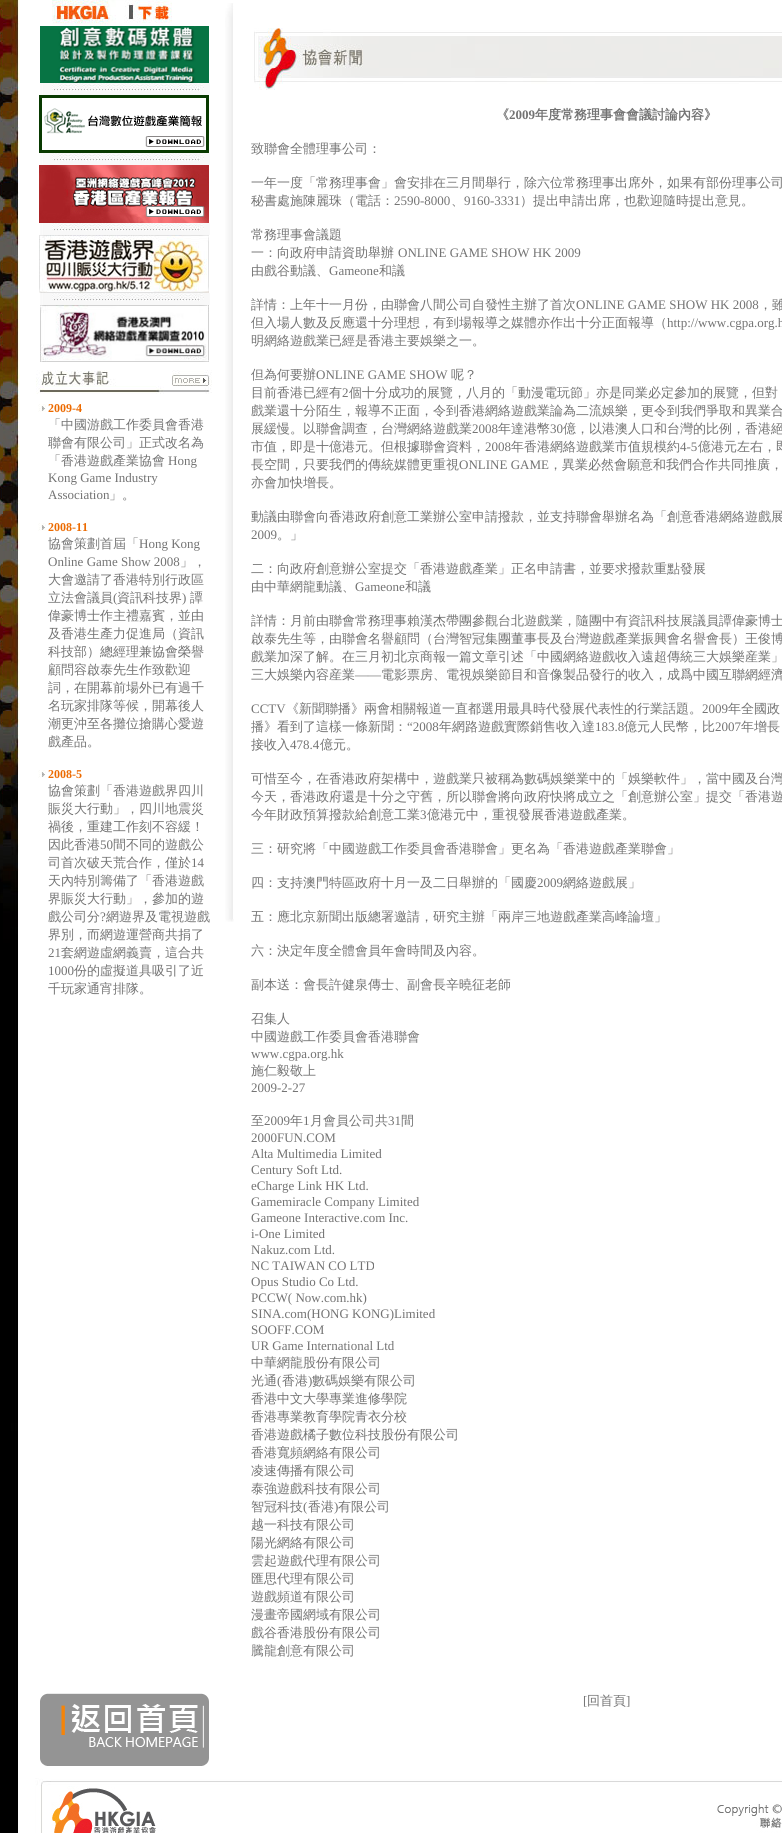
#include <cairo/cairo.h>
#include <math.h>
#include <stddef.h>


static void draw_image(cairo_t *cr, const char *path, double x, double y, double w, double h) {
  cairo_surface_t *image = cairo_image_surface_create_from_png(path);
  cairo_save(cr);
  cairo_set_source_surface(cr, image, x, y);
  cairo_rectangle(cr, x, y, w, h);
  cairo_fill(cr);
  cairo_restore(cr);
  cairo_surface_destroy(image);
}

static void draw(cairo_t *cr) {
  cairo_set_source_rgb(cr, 0, 0, 0);
  cairo_paint(cr);
  draw_image(cr, "images/1.png", 0, 0, 3, 903);
  draw_image(cr, "images/2.png", 3, 0, 25, 1710);
  cairo_set_source_rgb(cr, 1, 1, 1);
  cairo_rectangle(cr, 28, 0, 754, 1710);
  cairo_fill(cr);
  draw_image(cr, "images/3.png", 52, 0, 120, 26);
  draw_image(cr, "images/4.png", 40, 26, 169, 57);
  draw_image(cr, "images/5.png", 40, 83, 170, 12);
  draw_image(cr, "images/6.png", 39, 95, 170, 58);
  draw_image(cr, "images/5.png", 40, 153, 170, 12);
  draw_image(cr, "images/7.png", 39, 165, 170, 58);
  draw_image(cr, "images/5.png", 40, 223, 170, 12);
  draw_image(cr, "images/8.png", 39, 235, 170, 58);
  draw_image(cr, "images/5.png", 40, 293, 170, 12);
  draw_image(cr, "images/9.png", 40, 305, 169, 57);
  draw_image(cr, "images/10.png", 36, 370, 176, 24);
  draw_image(cr, "images/11.png", 38, 404, 8, 8);
  draw_image(cr, "images/11.png", 38, 523, 8, 8);
  draw_image(cr, "images/11.png", 38, 770, 8, 8);
  draw_image(cr, "images/12.png", 225, 3, 9, 919);
  draw_image(cr, "images/13.png", 254, 28, 528, 62);
  cairo_rectangle(cr, 18, 1710, 764, 60);
  cairo_fill(cr);
  draw_image(cr, "images/14.png", 40, 1693, 169, 73);
  draw_image(cr, "images/15.png", 18, 1770, 764, 63);
  cairo_select_font_face(cr, "Liberation Serif", CAIRO_FONT_SLANT_NORMAL, CAIRO_FONT_WEIGHT_BOLD);
  cairo_set_font_size(cr, 12);
  cairo_set_source_rgb(cr, 236 / 255.0, 106 / 255.0, 0);
  cairo_move_to(cr, 48, 412);
  cairo_show_text(cr, "2009-4");
  cairo_select_font_face(cr, "WenQuanYi Zen Hei Medium", CAIRO_FONT_SLANT_NORMAL, CAIRO_FONT_WEIGHT_NORMAL);
  cairo_set_font_size(cr, 13);
  cairo_set_source_rgb(cr, 115 / 255.0, 115 / 255.0, 115 / 255.0);
  cairo_move_to(cr, 48, 429);
  cairo_show_text(cr, "「中國游戲工作委員會香港");
  cairo_move_to(cr, 48, 447);
  cairo_show_text(cr, "聯會有限公司」正式改名為");
  cairo_move_to(cr, 48, 465);
  cairo_show_text(cr, "「香港遊戲產業協會");
  cairo_select_font_face(cr, "Liberation Serif", CAIRO_FONT_SLANT_NORMAL, CAIRO_FONT_WEIGHT_NORMAL);
  cairo_move_to(cr, 168, 465);
  cairo_show_text(cr, "Hong");
  cairo_move_to(cr, 48, 482);
  cairo_show_text(cr, "Kong Game Industry");
  cairo_move_to(cr, 48, 499);
  cairo_show_text(cr, "Association");
  cairo_select_font_face(cr, "WenQuanYi Zen Hei Medium", CAIRO_FONT_SLANT_NORMAL, CAIRO_FONT_WEIGHT_NORMAL);
  cairo_move_to(cr, 109, 499);
  cairo_show_text(cr, "」。");
  cairo_select_font_face(cr, "Liberation Serif", CAIRO_FONT_SLANT_NORMAL, CAIRO_FONT_WEIGHT_BOLD);
  cairo_set_font_size(cr, 12);
  cairo_set_source_rgb(cr, 236 / 255.0, 106 / 255.0, 0);
  cairo_move_to(cr, 48, 531);
  cairo_show_text(cr, "2008-11");
  cairo_select_font_face(cr, "WenQuanYi Zen Hei Medium", CAIRO_FONT_SLANT_NORMAL, CAIRO_FONT_WEIGHT_NORMAL);
  cairo_set_font_size(cr, 13);
  cairo_set_source_rgb(cr, 115 / 255.0, 115 / 255.0, 115 / 255.0);
  cairo_move_to(cr, 48, 548);
  cairo_show_text(cr, "協會策劃首屆「");
  cairo_select_font_face(cr, "Liberation Serif", CAIRO_FONT_SLANT_NORMAL, CAIRO_FONT_WEIGHT_NORMAL);
  cairo_move_to(cr, 139, 548);
  cairo_show_text(cr, "Hong Kong");
  cairo_move_to(cr, 48, 566);
  cairo_show_text(cr, "Online Game Show 2008");
  cairo_select_font_face(cr, "WenQuanYi Zen Hei Medium", CAIRO_FONT_SLANT_NORMAL, CAIRO_FONT_WEIGHT_NORMAL);
  cairo_move_to(cr, 180, 566);
  cairo_show_text(cr, "」，");
  cairo_move_to(cr, 48, 584);
  cairo_show_text(cr, "大會邀請了香港特別行政區");
  cairo_move_to(cr, 48, 602);
  cairo_show_text(cr, "立法會議員");
  cairo_select_font_face(cr, "Liberation Serif", CAIRO_FONT_SLANT_NORMAL, CAIRO_FONT_WEIGHT_NORMAL);
  cairo_move_to(cr, 113, 602);
  cairo_show_text(cr, "(");
  cairo_select_font_face(cr, "WenQuanYi Zen Hei Medium", CAIRO_FONT_SLANT_NORMAL, CAIRO_FONT_WEIGHT_NORMAL);
  cairo_move_to(cr, 117, 602);
  cairo_show_text(cr, "資訊科技界");
  cairo_select_font_face(cr, "Liberation Serif", CAIRO_FONT_SLANT_NORMAL, CAIRO_FONT_WEIGHT_NORMAL);
  cairo_move_to(cr, 182, 602);
  cairo_show_text(cr, ")");
  cairo_select_font_face(cr, "WenQuanYi Zen Hei Medium", CAIRO_FONT_SLANT_NORMAL, CAIRO_FONT_WEIGHT_NORMAL);
  cairo_move_to(cr, 190, 602);
  cairo_show_text(cr, "譚");
  cairo_move_to(cr, 48, 620);
  cairo_show_text(cr, "偉豪博士作主禮嘉賓，並由");
  cairo_move_to(cr, 48, 638);
  cairo_show_text(cr, "及香港生產力促進局（資訊");
  cairo_move_to(cr, 48, 656);
  cairo_show_text(cr, "科技部）總經理兼協會榮譽");
  cairo_move_to(cr, 48, 674);
  cairo_show_text(cr, "顧問容啟泰先生作致歡迎");
  cairo_move_to(cr, 48, 692);
  cairo_show_text(cr, "詞，在開幕前場外已有過千");
  cairo_move_to(cr, 48, 710);
  cairo_show_text(cr, "名玩家排隊等候，開幕後人");
  cairo_move_to(cr, 48, 728);
  cairo_show_text(cr, "潮更沖至各攤位搶購心愛遊");
  cairo_move_to(cr, 48, 746);
  cairo_show_text(cr, "戲產品。");
  cairo_select_font_face(cr, "Liberation Serif", CAIRO_FONT_SLANT_NORMAL, CAIRO_FONT_WEIGHT_BOLD);
  cairo_set_font_size(cr, 12);
  cairo_set_source_rgb(cr, 236 / 255.0, 106 / 255.0, 0);
  cairo_move_to(cr, 48, 778);
  cairo_show_text(cr, "2008-5");
  cairo_select_font_face(cr, "WenQuanYi Zen Hei Medium", CAIRO_FONT_SLANT_NORMAL, CAIRO_FONT_WEIGHT_NORMAL);
  cairo_set_font_size(cr, 13);
  cairo_set_source_rgb(cr, 115 / 255.0, 115 / 255.0, 115 / 255.0);
  cairo_move_to(cr, 48, 795);
  cairo_show_text(cr, "協會策劃「香港遊戲界四川");
  cairo_move_to(cr, 48, 813);
  cairo_show_text(cr, "賑災大行動」，四川地震災");
  cairo_move_to(cr, 48, 831);
  cairo_show_text(cr, "禍後，重建工作刻不容緩！");
  cairo_move_to(cr, 48, 849);
  cairo_show_text(cr, "因此香港");
  cairo_select_font_face(cr, "Liberation Serif", CAIRO_FONT_SLANT_NORMAL, CAIRO_FONT_WEIGHT_NORMAL);
  cairo_move_to(cr, 100, 849);
  cairo_show_text(cr, "50");
  cairo_select_font_face(cr, "WenQuanYi Zen Hei Medium", CAIRO_FONT_SLANT_NORMAL, CAIRO_FONT_WEIGHT_NORMAL);
  cairo_move_to(cr, 113, 849);
  cairo_show_text(cr, "間不同的遊戲公");
  cairo_move_to(cr, 48, 867);
  cairo_show_text(cr, "司首次破天荒合作，僅於");
  cairo_select_font_face(cr, "Liberation Serif", CAIRO_FONT_SLANT_NORMAL, CAIRO_FONT_WEIGHT_NORMAL);
  cairo_move_to(cr, 191, 867);
  cairo_show_text(cr, "14");
  cairo_select_font_face(cr, "WenQuanYi Zen Hei Medium", CAIRO_FONT_SLANT_NORMAL, CAIRO_FONT_WEIGHT_NORMAL);
  cairo_move_to(cr, 48, 885);
  cairo_show_text(cr, "天內特別籌備了「香港遊戲");
  cairo_move_to(cr, 48, 903);
  cairo_show_text(cr, "界賑災大行動」，參加的遊");
  cairo_move_to(cr, 48, 921);
  cairo_show_text(cr, "戲公司分");
  cairo_select_font_face(cr, "Liberation Serif", CAIRO_FONT_SLANT_NORMAL, CAIRO_FONT_WEIGHT_NORMAL);
  cairo_move_to(cr, 100, 921);
  cairo_show_text(cr, "?");
  cairo_select_font_face(cr, "WenQuanYi Zen Hei Medium", CAIRO_FONT_SLANT_NORMAL, CAIRO_FONT_WEIGHT_NORMAL);
  cairo_move_to(cr, 106, 921);
  cairo_show_text(cr, "網遊界及電視遊戲");
  cairo_move_to(cr, 48, 939);
  cairo_show_text(cr, "界別，而網遊運營商共捐了");
  cairo_select_font_face(cr, "Liberation Serif", CAIRO_FONT_SLANT_NORMAL, CAIRO_FONT_WEIGHT_NORMAL);
  cairo_move_to(cr, 48, 957);
  cairo_show_text(cr, "21");
  cairo_select_font_face(cr, "WenQuanYi Zen Hei Medium", CAIRO_FONT_SLANT_NORMAL, CAIRO_FONT_WEIGHT_NORMAL);
  cairo_move_to(cr, 61, 957);
  cairo_show_text(cr, "套網遊虛網義賣，這合共");
  cairo_select_font_face(cr, "Liberation Serif", CAIRO_FONT_SLANT_NORMAL, CAIRO_FONT_WEIGHT_NORMAL);
  cairo_move_to(cr, 48, 975);
  cairo_show_text(cr, "1000");
  cairo_select_font_face(cr, "WenQuanYi Zen Hei Medium", CAIRO_FONT_SLANT_NORMAL, CAIRO_FONT_WEIGHT_NORMAL);
  cairo_move_to(cr, 74, 975);
  cairo_show_text(cr, "份的虛擬道具吸引了近");
  cairo_move_to(cr, 48, 993);
  cairo_show_text(cr, "千玩家通宵排隊。");
  cairo_select_font_face(cr, "WenQuanYi Zen Hei", CAIRO_FONT_SLANT_NORMAL, CAIRO_FONT_WEIGHT_BOLD);
  cairo_move_to(cr, 496, 119);
  cairo_show_text(cr, "《");
  cairo_select_font_face(cr, "Liberation Serif", CAIRO_FONT_SLANT_NORMAL, CAIRO_FONT_WEIGHT_BOLD);
  cairo_move_to(cr, 509, 119);
  cairo_show_text(cr, "2009");
  cairo_select_font_face(cr, "WenQuanYi Zen Hei", CAIRO_FONT_SLANT_NORMAL, CAIRO_FONT_WEIGHT_BOLD);
  cairo_move_to(cr, 535, 119);
  cairo_show_text(cr, "年度常務理事會會議討論內容》");
  cairo_select_font_face(cr, "WenQuanYi Zen Hei Medium", CAIRO_FONT_SLANT_NORMAL, CAIRO_FONT_WEIGHT_NORMAL);
  cairo_move_to(cr, 251, 153);
  cairo_show_text(cr, "致聯會全體理事公司：");
  cairo_move_to(cr, 251, 187);
  cairo_show_text(cr, "一年一度「常務理事會」會安排在三月間舉行，除六位常務理事出席外，如果有部份理事公司");
  cairo_move_to(cr, 251, 205);
  cairo_show_text(cr, "秘書處施陳麗珠（電話：");
  cairo_select_font_face(cr, "Liberation Serif", CAIRO_FONT_SLANT_NORMAL, CAIRO_FONT_WEIGHT_NORMAL);
  cairo_move_to(cr, 394, 205);
  cairo_show_text(cr, "2590-8000");
  cairo_select_font_face(cr, "WenQuanYi Zen Hei Medium", CAIRO_FONT_SLANT_NORMAL, CAIRO_FONT_WEIGHT_NORMAL);
  cairo_move_to(cr, 451, 205);
  cairo_show_text(cr, "、");
  cairo_select_font_face(cr, "Liberation Serif", CAIRO_FONT_SLANT_NORMAL, CAIRO_FONT_WEIGHT_NORMAL);
  cairo_move_to(cr, 464, 205);
  cairo_show_text(cr, "9160-3331");
  cairo_select_font_face(cr, "WenQuanYi Zen Hei Medium", CAIRO_FONT_SLANT_NORMAL, CAIRO_FONT_WEIGHT_NORMAL);
  cairo_move_to(cr, 520, 205);
  cairo_show_text(cr, "）提出申請出席，也歡迎隨時提出意見。");
  cairo_move_to(cr, 251, 239);
  cairo_show_text(cr, "常務理事會議題");
  cairo_move_to(cr, 251, 257);
  cairo_show_text(cr, "一：向政府申請資助舉辦");
  cairo_select_font_face(cr, "Liberation Serif", CAIRO_FONT_SLANT_NORMAL, CAIRO_FONT_WEIGHT_NORMAL);
  cairo_move_to(cr, 398, 257);
  cairo_show_text(cr, "ONLINE GAME SHOW HK 2009");
  cairo_select_font_face(cr, "WenQuanYi Zen Hei Medium", CAIRO_FONT_SLANT_NORMAL, CAIRO_FONT_WEIGHT_NORMAL);
  cairo_move_to(cr, 251, 275);
  cairo_show_text(cr, "由戲谷動議、");
  cairo_select_font_face(cr, "Liberation Serif", CAIRO_FONT_SLANT_NORMAL, CAIRO_FONT_WEIGHT_NORMAL);
  cairo_move_to(cr, 329, 275);
  cairo_show_text(cr, "Gameone");
  cairo_select_font_face(cr, "WenQuanYi Zen Hei Medium", CAIRO_FONT_SLANT_NORMAL, CAIRO_FONT_WEIGHT_NORMAL);
  cairo_move_to(cr, 379, 275);
  cairo_show_text(cr, "和議");
  cairo_move_to(cr, 251, 309);
  cairo_show_text(cr, "詳情：上年十一月份，由聯會八間公司自發性主辦了首次");
  cairo_select_font_face(cr, "Liberation Serif", CAIRO_FONT_SLANT_NORMAL, CAIRO_FONT_WEIGHT_NORMAL);
  cairo_move_to(cr, 576, 309);
  cairo_show_text(cr, "ONLINE GAME SHOW HK 2008");
  cairo_select_font_face(cr, "WenQuanYi Zen Hei Medium", CAIRO_FONT_SLANT_NORMAL, CAIRO_FONT_WEIGHT_NORMAL);
  cairo_move_to(cr, 759, 309);
  cairo_show_text(cr, "，雖");
  cairo_move_to(cr, 251, 327);
  cairo_show_text(cr, "但入場人數及反應還十分理想，有到場報導之媒體亦作出十分正面報導（");
  cairo_select_font_face(cr, "Liberation Serif", CAIRO_FONT_SLANT_NORMAL, CAIRO_FONT_WEIGHT_NORMAL);
  cairo_move_to(cr, 667, 327);
  cairo_show_text(cr, "http://www.cgpa.org.h");
  cairo_select_font_face(cr, "WenQuanYi Zen Hei Medium", CAIRO_FONT_SLANT_NORMAL, CAIRO_FONT_WEIGHT_NORMAL);
  cairo_move_to(cr, 251, 345);
  cairo_show_text(cr, "明網絡遊戲業已經是香港主要娛樂之一。");
  cairo_move_to(cr, 251, 379);
  cairo_show_text(cr, "但為何要辦");
  cairo_select_font_face(cr, "Liberation Serif", CAIRO_FONT_SLANT_NORMAL, CAIRO_FONT_WEIGHT_NORMAL);
  cairo_move_to(cr, 316, 379);
  cairo_show_text(cr, "ONLINE GAME SHOW");
  cairo_select_font_face(cr, "WenQuanYi Zen Hei Medium", CAIRO_FONT_SLANT_NORMAL, CAIRO_FONT_WEIGHT_NORMAL);
  cairo_move_to(cr, 451, 379);
  cairo_show_text(cr, "呢？");
  cairo_move_to(cr, 251, 397);
  cairo_show_text(cr, "目前香港已經有");
  cairo_select_font_face(cr, "Liberation Serif", CAIRO_FONT_SLANT_NORMAL, CAIRO_FONT_WEIGHT_NORMAL);
  cairo_move_to(cr, 342, 397);
  cairo_show_text(cr, "2");
  cairo_select_font_face(cr, "WenQuanYi Zen Hei Medium", CAIRO_FONT_SLANT_NORMAL, CAIRO_FONT_WEIGHT_NORMAL);
  cairo_move_to(cr, 349, 397);
  cairo_show_text(cr, "個十分成功的展覽，八月的「動漫電玩節」亦是同業必定參加的展覽，但對");
  cairo_move_to(cr, 251, 415);
  cairo_show_text(cr, "戲業還十分陌生，報導不正面，令到香港網絡遊戲業論為二流娛樂，更令到我們爭取和異業合");
  cairo_move_to(cr, 251, 433);
  cairo_show_text(cr, "展緩慢。以聯會調查，台灣網絡遊戲業");
  cairo_select_font_face(cr, "Liberation Serif", CAIRO_FONT_SLANT_NORMAL, CAIRO_FONT_WEIGHT_NORMAL);
  cairo_move_to(cr, 472, 433);
  cairo_show_text(cr, "2008");
  cairo_select_font_face(cr, "WenQuanYi Zen Hei Medium", CAIRO_FONT_SLANT_NORMAL, CAIRO_FONT_WEIGHT_NORMAL);
  cairo_move_to(cr, 498, 433);
  cairo_show_text(cr, "年達港幣");
  cairo_select_font_face(cr, "Liberation Serif", CAIRO_FONT_SLANT_NORMAL, CAIRO_FONT_WEIGHT_NORMAL);
  cairo_move_to(cr, 550, 433);
  cairo_show_text(cr, "30");
  cairo_select_font_face(cr, "WenQuanYi Zen Hei Medium", CAIRO_FONT_SLANT_NORMAL, CAIRO_FONT_WEIGHT_NORMAL);
  cairo_move_to(cr, 563, 433);
  cairo_show_text(cr, "億，以港澳人口和台灣的比例，香港絕");
  cairo_move_to(cr, 251, 451);
  cairo_show_text(cr, "市值，即是十億港元。但根據聯會資料，");
  cairo_select_font_face(cr, "Liberation Serif", CAIRO_FONT_SLANT_NORMAL, CAIRO_FONT_WEIGHT_NORMAL);
  cairo_move_to(cr, 485, 451);
  cairo_show_text(cr, "2008");
  cairo_select_font_face(cr, "WenQuanYi Zen Hei Medium", CAIRO_FONT_SLANT_NORMAL, CAIRO_FONT_WEIGHT_NORMAL);
  cairo_move_to(cr, 511, 451);
  cairo_show_text(cr, "年香港網絡遊戲業市值規模約");
  cairo_select_font_face(cr, "Liberation Serif", CAIRO_FONT_SLANT_NORMAL, CAIRO_FONT_WEIGHT_NORMAL);
  cairo_move_to(cr, 680, 451);
  cairo_show_text(cr, "4-5");
  cairo_select_font_face(cr, "WenQuanYi Zen Hei Medium", CAIRO_FONT_SLANT_NORMAL, CAIRO_FONT_WEIGHT_NORMAL);
  cairo_move_to(cr, 698, 451);
  cairo_show_text(cr, "億港元左右，即");
  cairo_move_to(cr, 251, 469);
  cairo_show_text(cr, "長空間，只要我們的傳統媒體更重視");
  cairo_select_font_face(cr, "Liberation Serif", CAIRO_FONT_SLANT_NORMAL, CAIRO_FONT_WEIGHT_NORMAL);
  cairo_move_to(cr, 459, 469);
  cairo_show_text(cr, "ONLINE GAME");
  cairo_select_font_face(cr, "WenQuanYi Zen Hei Medium", CAIRO_FONT_SLANT_NORMAL, CAIRO_FONT_WEIGHT_NORMAL);
  cairo_move_to(cr, 549, 469);
  cairo_show_text(cr, "，異業必然會願意和我們合作共同推廣，");
  cairo_move_to(cr, 251, 487);
  cairo_show_text(cr, "亦會加快增長。");
  cairo_move_to(cr, 251, 521);
  cairo_show_text(cr, "動議由聯會向香港政府創意工業辦公室申請撥款，並支持聯會舉辦名為「創意香港網絡遊戲展");
  cairo_select_font_face(cr, "Liberation Serif", CAIRO_FONT_SLANT_NORMAL, CAIRO_FONT_WEIGHT_NORMAL);
  cairo_move_to(cr, 251, 539);
  cairo_show_text(cr, "2009");
  cairo_select_font_face(cr, "WenQuanYi Zen Hei Medium", CAIRO_FONT_SLANT_NORMAL, CAIRO_FONT_WEIGHT_NORMAL);
  cairo_move_to(cr, 277, 539);
  cairo_show_text(cr, "。」");
  cairo_move_to(cr, 251, 573);
  cairo_show_text(cr, "二：向政府創意辦公室提交「香港遊戲產業」正名申請書，並要求撥款重點發展");
  cairo_move_to(cr, 251, 591);
  cairo_show_text(cr, "由中華網龍動議、");
  cairo_select_font_face(cr, "Liberation Serif", CAIRO_FONT_SLANT_NORMAL, CAIRO_FONT_WEIGHT_NORMAL);
  cairo_move_to(cr, 355, 591);
  cairo_show_text(cr, "Gameone");
  cairo_select_font_face(cr, "WenQuanYi Zen Hei Medium", CAIRO_FONT_SLANT_NORMAL, CAIRO_FONT_WEIGHT_NORMAL);
  cairo_move_to(cr, 405, 591);
  cairo_show_text(cr, "和議");
  cairo_move_to(cr, 251, 625);
  cairo_show_text(cr, "詳情：月前由聯會常務理事賴漢杰帶團參觀台北遊戲業，隨團中有資訊科技展議員譚偉豪博士");
  cairo_move_to(cr, 251, 643);
  cairo_show_text(cr, "啟泰先生等，由聯會名譽顧問（台灣智冠集團董事長及台灣遊戲產業振興會名譽會長）王俊博");
  cairo_move_to(cr, 251, 661);
  cairo_show_text(cr, "戲業加深了解。在三月初北京商報一篇文章引述「中國網絡遊戲收入遠超傳統三大娛樂産業」");
  cairo_move_to(cr, 251, 679);
  cairo_show_text(cr, "三大娛樂內容産業");
  cairo_select_font_face(cr, "Liberation Serif", CAIRO_FONT_SLANT_NORMAL, CAIRO_FONT_WEIGHT_NORMAL);
  cairo_move_to(cr, 355, 679);
  cairo_show_text(cr, "——");
  cairo_select_font_face(cr, "WenQuanYi Zen Hei Medium", CAIRO_FONT_SLANT_NORMAL, CAIRO_FONT_WEIGHT_NORMAL);
  cairo_move_to(cr, 381, 679);
  cairo_show_text(cr, "電影票房、電視娛樂節目和音像製品發行的收入，成爲中國互聯網經濟");
  cairo_select_font_face(cr, "Liberation Serif", CAIRO_FONT_SLANT_NORMAL, CAIRO_FONT_WEIGHT_NORMAL);
  cairo_move_to(cr, 251, 713);
  cairo_show_text(cr, "CCTV");
  cairo_select_font_face(cr, "WenQuanYi Zen Hei Medium", CAIRO_FONT_SLANT_NORMAL, CAIRO_FONT_WEIGHT_NORMAL);
  cairo_move_to(cr, 286, 713);
  cairo_show_text(cr, "《新聞聯播》兩會相關報道一直都選用最具時代發展代表性的行業話題。");
  cairo_select_font_face(cr, "Liberation Serif", CAIRO_FONT_SLANT_NORMAL, CAIRO_FONT_WEIGHT_NORMAL);
  cairo_move_to(cr, 702, 713);
  cairo_show_text(cr, "2009");
  cairo_select_font_face(cr, "WenQuanYi Zen Hei Medium", CAIRO_FONT_SLANT_NORMAL, CAIRO_FONT_WEIGHT_NORMAL);
  cairo_move_to(cr, 728, 713);
  cairo_show_text(cr, "年全國政");
  cairo_move_to(cr, 251, 731);
  cairo_show_text(cr, "播》看到了這樣一條新聞：");
  cairo_select_font_face(cr, "Liberation Serif", CAIRO_FONT_SLANT_NORMAL, CAIRO_FONT_WEIGHT_NORMAL);
  cairo_move_to(cr, 407, 731);
  cairo_show_text(cr, "“2008");
  cairo_select_font_face(cr, "WenQuanYi Zen Hei Medium", CAIRO_FONT_SLANT_NORMAL, CAIRO_FONT_WEIGHT_NORMAL);
  cairo_move_to(cr, 439, 731);
  cairo_show_text(cr, "年網路遊戲實際銷售收入達");
  cairo_select_font_face(cr, "Liberation Serif", CAIRO_FONT_SLANT_NORMAL, CAIRO_FONT_WEIGHT_NORMAL);
  cairo_move_to(cr, 595, 731);
  cairo_show_text(cr, "183.8");
  cairo_select_font_face(cr, "WenQuanYi Zen Hei Medium", CAIRO_FONT_SLANT_NORMAL, CAIRO_FONT_WEIGHT_NORMAL);
  cairo_move_to(cr, 624, 731);
  cairo_show_text(cr, "億元人民幣，比");
  cairo_select_font_face(cr, "Liberation Serif", CAIRO_FONT_SLANT_NORMAL, CAIRO_FONT_WEIGHT_NORMAL);
  cairo_move_to(cr, 715, 731);
  cairo_show_text(cr, "2007");
  cairo_select_font_face(cr, "WenQuanYi Zen Hei Medium", CAIRO_FONT_SLANT_NORMAL, CAIRO_FONT_WEIGHT_NORMAL);
  cairo_move_to(cr, 741, 731);
  cairo_show_text(cr, "年增長");
  cairo_move_to(cr, 251, 749);
  cairo_show_text(cr, "接收入");
  cairo_select_font_face(cr, "Liberation Serif", CAIRO_FONT_SLANT_NORMAL, CAIRO_FONT_WEIGHT_NORMAL);
  cairo_move_to(cr, 290, 749);
  cairo_show_text(cr, "478.4");
  cairo_select_font_face(cr, "WenQuanYi Zen Hei Medium", CAIRO_FONT_SLANT_NORMAL, CAIRO_FONT_WEIGHT_NORMAL);
  cairo_move_to(cr, 320, 749);
  cairo_show_text(cr, "億元。");
  cairo_move_to(cr, 251, 783);
  cairo_show_text(cr, "可惜至今，在香港政府架構中，遊戲業只被稱為數碼娛樂業中的「娛樂軟件」，當中國及台灣");
  cairo_move_to(cr, 251, 801);
  cairo_show_text(cr, "今天，香港政府還是十分之守舊，所以聯會將向政府快將成立之「創意辦公室」提交「香港遊");
  cairo_move_to(cr, 251, 819);
  cairo_show_text(cr, "今年財政預算撥款給創意工業");
  cairo_select_font_face(cr, "Liberation Serif", CAIRO_FONT_SLANT_NORMAL, CAIRO_FONT_WEIGHT_NORMAL);
  cairo_move_to(cr, 420, 819);
  cairo_show_text(cr, "3");
  cairo_select_font_face(cr, "WenQuanYi Zen Hei Medium", CAIRO_FONT_SLANT_NORMAL, CAIRO_FONT_WEIGHT_NORMAL);
  cairo_move_to(cr, 427, 819);
  cairo_show_text(cr, "億港元中，重視發展香港遊戲產業。");
  cairo_move_to(cr, 251, 853);
  cairo_show_text(cr, "三：研究將「中國遊戲工作委員會香港聯會」更名為「香港遊戲產業聯會」");
  cairo_move_to(cr, 251, 887);
  cairo_show_text(cr, "四：支持澳門特區政府十月一及二日舉辦的「國慶");
  cairo_select_font_face(cr, "Liberation Serif", CAIRO_FONT_SLANT_NORMAL, CAIRO_FONT_WEIGHT_NORMAL);
  cairo_move_to(cr, 537, 887);
  cairo_show_text(cr, "2009");
  cairo_select_font_face(cr, "WenQuanYi Zen Hei Medium", CAIRO_FONT_SLANT_NORMAL, CAIRO_FONT_WEIGHT_NORMAL);
  cairo_move_to(cr, 563, 887);
  cairo_show_text(cr, "網絡遊戲展」");
  cairo_move_to(cr, 251, 921);
  cairo_show_text(cr, "五：應北京新聞出版總署邀請，研究主辦「兩岸三地遊戲產業高峰論壇」");
  cairo_move_to(cr, 251, 955);
  cairo_show_text(cr, "六：決定年度全體會員年會時間及內容。");
  cairo_move_to(cr, 251, 989);
  cairo_show_text(cr, "副本送：會長許健泉傳士、副會長辛曉征老師");
  cairo_move_to(cr, 251, 1023);
  cairo_show_text(cr, "召集人");
  cairo_move_to(cr, 251, 1041);
  cairo_show_text(cr, "中國遊戲工作委員會香港聯會");
  cairo_select_font_face(cr, "Liberation Serif", CAIRO_FONT_SLANT_NORMAL, CAIRO_FONT_WEIGHT_NORMAL);
  cairo_move_to(cr, 251, 1058);
  cairo_show_text(cr, "www.cgpa.org.hk");
  cairo_select_font_face(cr, "WenQuanYi Zen Hei Medium", CAIRO_FONT_SLANT_NORMAL, CAIRO_FONT_WEIGHT_NORMAL);
  cairo_move_to(cr, 251, 1075);
  cairo_show_text(cr, "施仁毅敬上");
  cairo_select_font_face(cr, "Liberation Serif", CAIRO_FONT_SLANT_NORMAL, CAIRO_FONT_WEIGHT_NORMAL);
  cairo_move_to(cr, 251, 1092);
  cairo_show_text(cr, "2009-2-27");
  cairo_select_font_face(cr, "WenQuanYi Zen Hei Medium", CAIRO_FONT_SLANT_NORMAL, CAIRO_FONT_WEIGHT_NORMAL);
  cairo_move_to(cr, 251, 1125);
  cairo_show_text(cr, "至");
  cairo_select_font_face(cr, "Liberation Serif", CAIRO_FONT_SLANT_NORMAL, CAIRO_FONT_WEIGHT_NORMAL);
  cairo_move_to(cr, 264, 1125);
  cairo_show_text(cr, "2009");
  cairo_select_font_face(cr, "WenQuanYi Zen Hei Medium", CAIRO_FONT_SLANT_NORMAL, CAIRO_FONT_WEIGHT_NORMAL);
  cairo_move_to(cr, 290, 1125);
  cairo_show_text(cr, "年");
  cairo_select_font_face(cr, "Liberation Serif", CAIRO_FONT_SLANT_NORMAL, CAIRO_FONT_WEIGHT_NORMAL);
  cairo_move_to(cr, 303, 1125);
  cairo_show_text(cr, "1");
  cairo_select_font_face(cr, "WenQuanYi Zen Hei Medium", CAIRO_FONT_SLANT_NORMAL, CAIRO_FONT_WEIGHT_NORMAL);
  cairo_move_to(cr, 310, 1125);
  cairo_show_text(cr, "月會員公司共");
  cairo_select_font_face(cr, "Liberation Serif", CAIRO_FONT_SLANT_NORMAL, CAIRO_FONT_WEIGHT_NORMAL);
  cairo_move_to(cr, 388, 1125);
  cairo_show_text(cr, "31");
  cairo_select_font_face(cr, "WenQuanYi Zen Hei Medium", CAIRO_FONT_SLANT_NORMAL, CAIRO_FONT_WEIGHT_NORMAL);
  cairo_move_to(cr, 401, 1125);
  cairo_show_text(cr, "間");
  cairo_select_font_face(cr, "Liberation Serif", CAIRO_FONT_SLANT_NORMAL, CAIRO_FONT_WEIGHT_NORMAL);
  cairo_move_to(cr, 251, 1142);
  cairo_show_text(cr, "2000FUN.COM");
  cairo_move_to(cr, 251, 1158);
  cairo_show_text(cr, "Alta Multimedia Limited");
  cairo_move_to(cr, 251, 1174);
  cairo_show_text(cr, "Century Soft Ltd.");
  cairo_move_to(cr, 251, 1190);
  cairo_show_text(cr, "eCharge Link HK Ltd.");
  cairo_move_to(cr, 251, 1206);
  cairo_show_text(cr, "Gamemiracle Company Limited");
  cairo_move_to(cr, 251, 1222);
  cairo_show_text(cr, "Gameone Interactive.com Inc.");
  cairo_move_to(cr, 251, 1238);
  cairo_show_text(cr, "i-One Limited");
  cairo_move_to(cr, 251, 1254);
  cairo_show_text(cr, "Nakuz.com Ltd.");
  cairo_move_to(cr, 251, 1270);
  cairo_show_text(cr, "NC TAIWAN CO LTD");
  cairo_move_to(cr, 251, 1286);
  cairo_show_text(cr, "Opus Studio Co Ltd.");
  cairo_move_to(cr, 251, 1302);
  cairo_show_text(cr, "PCCW( Now.com.hk)");
  cairo_move_to(cr, 251, 1318);
  cairo_show_text(cr, "SINA.com(HONG KONG)Limited");
  cairo_move_to(cr, 251, 1334);
  cairo_show_text(cr, "SOOFF.COM");
  cairo_move_to(cr, 251, 1350);
  cairo_show_text(cr, "UR Game International Ltd");
  cairo_select_font_face(cr, "WenQuanYi Zen Hei Medium", CAIRO_FONT_SLANT_NORMAL, CAIRO_FONT_WEIGHT_NORMAL);
  cairo_move_to(cr, 251, 1367);
  cairo_show_text(cr, "中華網龍股份有限公司");
  cairo_move_to(cr, 251, 1385);
  cairo_show_text(cr, "光通");
  cairo_select_font_face(cr, "Liberation Serif", CAIRO_FONT_SLANT_NORMAL, CAIRO_FONT_WEIGHT_NORMAL);
  cairo_move_to(cr, 277, 1385);
  cairo_show_text(cr, "(");
  cairo_select_font_face(cr, "WenQuanYi Zen Hei Medium", CAIRO_FONT_SLANT_NORMAL, CAIRO_FONT_WEIGHT_NORMAL);
  cairo_move_to(cr, 282, 1385);
  cairo_show_text(cr, "香港");
  cairo_select_font_face(cr, "Liberation Serif", CAIRO_FONT_SLANT_NORMAL, CAIRO_FONT_WEIGHT_NORMAL);
  cairo_move_to(cr, 308, 1385);
  cairo_show_text(cr, ")");
  cairo_select_font_face(cr, "WenQuanYi Zen Hei Medium", CAIRO_FONT_SLANT_NORMAL, CAIRO_FONT_WEIGHT_NORMAL);
  cairo_move_to(cr, 312, 1385);
  cairo_show_text(cr, "數碼娛樂有限公司");
  cairo_move_to(cr, 251, 1403);
  cairo_show_text(cr, "香港中文大學專業進修學院");
  cairo_move_to(cr, 251, 1421);
  cairo_show_text(cr, "香港專業教育學院青衣分校");
  cairo_move_to(cr, 251, 1439);
  cairo_show_text(cr, "香港遊戲橘子數位科技股份有限公司");
  cairo_move_to(cr, 251, 1457);
  cairo_show_text(cr, "香港寬頻網絡有限公司");
  cairo_move_to(cr, 251, 1475);
  cairo_show_text(cr, "凌速傳播有限公司");
  cairo_move_to(cr, 251, 1493);
  cairo_show_text(cr, "泰強遊戲科技有限公司");
  cairo_move_to(cr, 251, 1511);
  cairo_show_text(cr, "智冠科技");
  cairo_select_font_face(cr, "Liberation Serif", CAIRO_FONT_SLANT_NORMAL, CAIRO_FONT_WEIGHT_NORMAL);
  cairo_move_to(cr, 303, 1511);
  cairo_show_text(cr, "(");
  cairo_select_font_face(cr, "WenQuanYi Zen Hei Medium", CAIRO_FONT_SLANT_NORMAL, CAIRO_FONT_WEIGHT_NORMAL);
  cairo_move_to(cr, 308, 1511);
  cairo_show_text(cr, "香港");
  cairo_select_font_face(cr, "Liberation Serif", CAIRO_FONT_SLANT_NORMAL, CAIRO_FONT_WEIGHT_NORMAL);
  cairo_move_to(cr, 334, 1511);
  cairo_show_text(cr, ")");
  cairo_select_font_face(cr, "WenQuanYi Zen Hei Medium", CAIRO_FONT_SLANT_NORMAL, CAIRO_FONT_WEIGHT_NORMAL);
  cairo_move_to(cr, 338, 1511);
  cairo_show_text(cr, "有限公司");
  cairo_move_to(cr, 251, 1529);
  cairo_show_text(cr, "越一科技有限公司");
  cairo_move_to(cr, 251, 1547);
  cairo_show_text(cr, "陽光網絡有限公司");
  cairo_move_to(cr, 251, 1565);
  cairo_show_text(cr, "雲起遊戲代理有限公司");
  cairo_move_to(cr, 251, 1583);
  cairo_show_text(cr, "匯思代理有限公司");
  cairo_move_to(cr, 251, 1601);
  cairo_show_text(cr, "遊戲頻道有限公司");
  cairo_move_to(cr, 251, 1619);
  cairo_show_text(cr, "漫畫帝國網域有限公司");
  cairo_move_to(cr, 251, 1637);
  cairo_show_text(cr, "戲谷香港股份有限公司");
  cairo_move_to(cr, 251, 1655);
  cairo_show_text(cr, "騰龍創意有限公司");
  cairo_select_font_face(cr, "Liberation Serif", CAIRO_FONT_SLANT_NORMAL, CAIRO_FONT_WEIGHT_NORMAL);
  cairo_move_to(cr, 583, 1705);
  cairo_show_text(cr, "[");
  cairo_select_font_face(cr, "WenQuanYi Zen Hei Medium", CAIRO_FONT_SLANT_NORMAL, CAIRO_FONT_WEIGHT_NORMAL);
  cairo_move_to(cr, 587, 1705);
  cairo_show_text(cr, "回首頁");
  cairo_select_font_face(cr, "Liberation Serif", CAIRO_FONT_SLANT_NORMAL, CAIRO_FONT_WEIGHT_NORMAL);
  cairo_move_to(cr, 626, 1705);
  cairo_show_text(cr, "]");
}

int main(void) {
  cairo_surface_t *surface = cairo_image_surface_create(CAIRO_FORMAT_RGB24, 782, 1833);
  cairo_t *cr = cairo_create(surface);
  cairo_font_options_t *options = cairo_font_options_create();
  cairo_font_options_set_hint_metrics(options, CAIRO_HINT_METRICS_OFF);
  cairo_font_options_set_hint_style(options, CAIRO_HINT_STYLE_NONE);
  cairo_set_font_options(cr, options);
  cairo_set_miter_limit(cr, 4);
  draw(cr);
  cairo_surface_write_to_png(surface, "out.png");
  cairo_font_options_destroy(options);
  cairo_destroy(cr);
  cairo_surface_destroy(surface);
  return 0;
}
